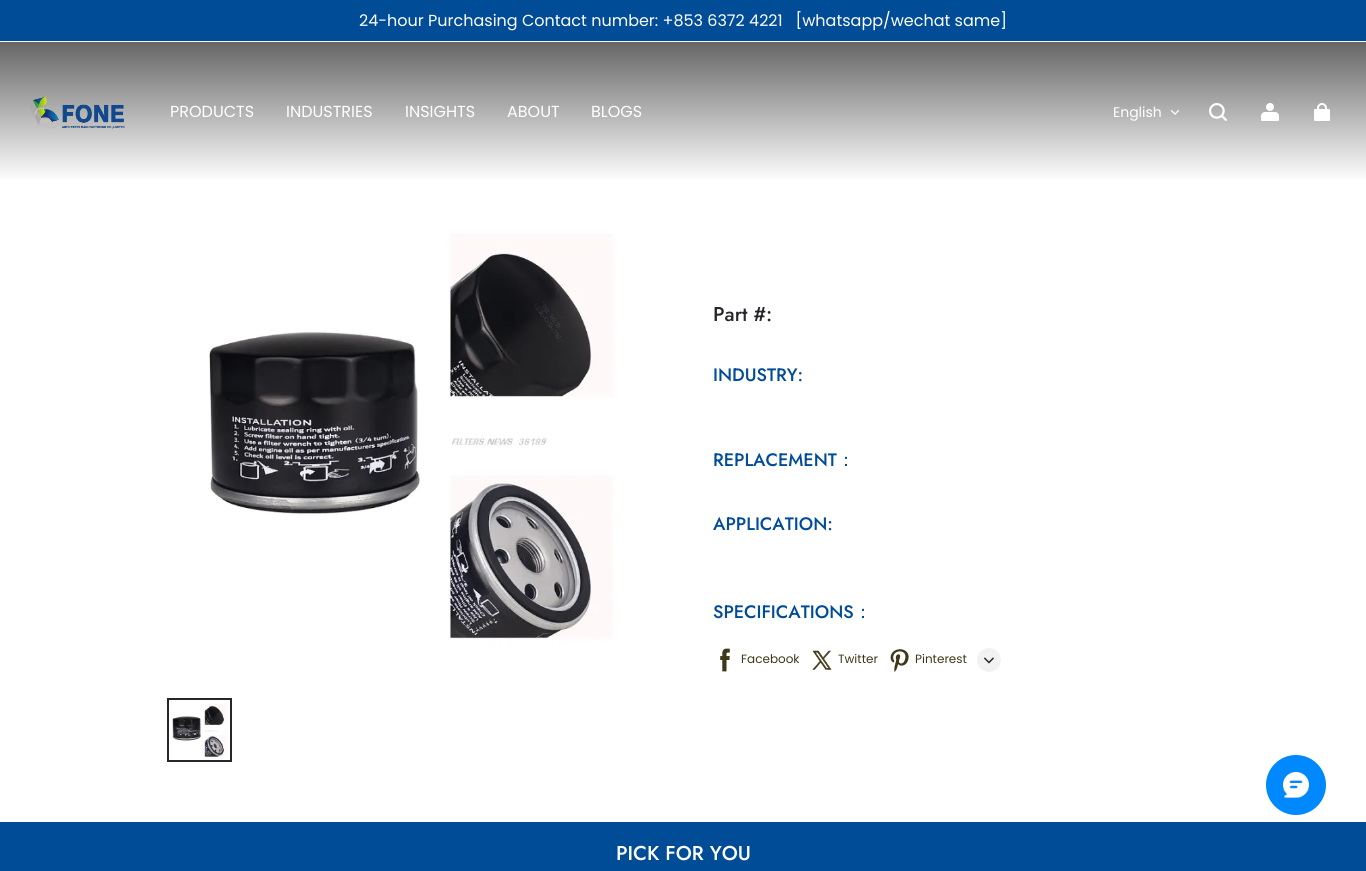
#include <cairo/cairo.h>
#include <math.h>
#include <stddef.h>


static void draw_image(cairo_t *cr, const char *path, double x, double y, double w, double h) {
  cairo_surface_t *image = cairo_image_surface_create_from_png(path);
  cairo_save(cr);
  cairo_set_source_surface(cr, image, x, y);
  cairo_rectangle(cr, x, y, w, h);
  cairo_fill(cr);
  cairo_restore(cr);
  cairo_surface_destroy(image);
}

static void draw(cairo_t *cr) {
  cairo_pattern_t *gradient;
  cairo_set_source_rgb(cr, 1, 1, 1);
  cairo_paint(cr);
  cairo_set_source_rgb(cr, 0, 76 / 255.0, 151 / 255.0);
  cairo_rectangle(cr, 0, 0, 1366, 41);
  cairo_fill(cr);
  gradient = cairo_pattern_create_linear(683, 42, 683, 182);
  cairo_pattern_add_color_stop_rgba(gradient, 0, 102 / 255.0, 102 / 255.0, 102 / 255.0, 1);
  cairo_pattern_add_color_stop_rgba(gradient, 1, 1, 1, 1, 1);
  cairo_set_source(cr, gradient);
  cairo_pattern_destroy(gradient);
  cairo_rectangle(cr, 0, 42, 1366, 138);
  cairo_fill(cr);
  draw_image(cr, "images/1.png", 30, 96, 95, 33);
  draw_image(cr, "images/2.png", 1170, 110, 9, 5);
  draw_image(cr, "images/3.png", 1209, 103, 18, 18);
  draw_image(cr, "images/4.png", 1261, 103, 18, 18);
  draw_image(cr, "images/5.png", 1314, 103, 16, 18);
  draw_image(cr, "images/6.png", 167, 192, 486, 486);
  draw_image(cr, "images/7.png", 169, 700, 61, 60);
  cairo_rectangle(cr, 168, 699, 63, 62);
  cairo_set_source_rgb(cr, 41 / 255.0, 37 / 255.0, 44 / 255.0);
  cairo_stroke(cr);
  draw_image(cr, "images/8.png", 720, 648, 10, 24);
  draw_image(cr, "images/9.png", 812, 650, 20, 20);
  draw_image(cr, "images/10.png", 890, 649, 19, 23);
  cairo_set_source_rgb(cr, 242 / 255.0, 242 / 255.0, 242 / 255.0);
  cairo_arc(cr, 989, 660, 12, 0, 2 * M_PI);
  cairo_fill(cr);
  draw_image(cr, "images/11.png", 983, 657, 11, 7);
  cairo_set_source_rgb(cr, 0, 136 / 255.0, 254 / 255.0);
  cairo_arc(cr, 1296, 785, 30, 0, 2 * M_PI);
  cairo_fill(cr);
  draw_image(cr, "images/12.png", 1283, 772, 26, 26);
  cairo_set_source_rgb(cr, 0, 76 / 255.0, 151 / 255.0);
  cairo_rectangle(cr, 0, 822, 1366, 49);
  cairo_fill(cr);
  cairo_select_font_face(cr, "Poppins", CAIRO_FONT_SLANT_NORMAL, CAIRO_FONT_WEIGHT_NORMAL);
  cairo_set_font_size(cr, 16);
  cairo_set_source_rgb(cr, 1, 1, 1);
  cairo_move_to(cr, 359, 26);
  cairo_show_text(cr, "24-hour Purchasing Contact number: +853 6372 4221   [whatsapp/wechat same]");
  cairo_move_to(cr, 170, 117);
  cairo_show_text(cr, "PRODUCTS");
  cairo_move_to(cr, 286, 117);
  cairo_show_text(cr, "INDUSTRIES");
  cairo_move_to(cr, 405, 117);
  cairo_show_text(cr, "INSIGHTS");
  cairo_move_to(cr, 507, 117);
  cairo_show_text(cr, "ABOUT");
  cairo_move_to(cr, 591, 117);
  cairo_show_text(cr, "BLOGS");
  cairo_set_font_size(cr, 14);
  cairo_move_to(cr, 1113, 117);
  cairo_show_text(cr, "English");
  cairo_select_font_face(cr, "Jost Medium", CAIRO_FONT_SLANT_NORMAL, CAIRO_FONT_WEIGHT_NORMAL);
  cairo_set_font_size(cr, 20);
  cairo_set_source_rgb(cr, 41 / 255.0, 37 / 255.0, 44 / 255.0);
  cairo_move_to(cr, 713, 321);
  cairo_show_text(cr, "Part #:");
  cairo_set_font_size(cr, 18);
  cairo_set_source_rgb(cr, 0, 76 / 255.0, 151 / 255.0);
  cairo_move_to(cr, 713, 381);
  cairo_show_text(cr, "INDUSTRY:");
  cairo_move_to(cr, 713, 466);
  cairo_show_text(cr, "REPLACEMENT");
  cairo_select_font_face(cr, "WenQuanYi Zen Hei Medium", CAIRO_FONT_SLANT_NORMAL, CAIRO_FONT_WEIGHT_NORMAL);
  cairo_move_to(cr, 837, 466);
  cairo_show_text(cr, "：");
  cairo_select_font_face(cr, "Jost Medium", CAIRO_FONT_SLANT_NORMAL, CAIRO_FONT_WEIGHT_NORMAL);
  cairo_move_to(cr, 713, 530);
  cairo_show_text(cr, "APPLICATION:");
  cairo_move_to(cr, 713, 618);
  cairo_show_text(cr, "SPECIFICATIONS");
  cairo_select_font_face(cr, "WenQuanYi Zen Hei Medium", CAIRO_FONT_SLANT_NORMAL, CAIRO_FONT_WEIGHT_NORMAL);
  cairo_move_to(cr, 854, 618);
  cairo_show_text(cr, "：");
  cairo_select_font_face(cr, "Poppins", CAIRO_FONT_SLANT_NORMAL, CAIRO_FONT_WEIGHT_NORMAL);
  cairo_set_font_size(cr, 12);
  cairo_set_source_rgb(cr, 61 / 255.0, 56 / 255.0, 25 / 255.0);
  cairo_move_to(cr, 741, 663);
  cairo_show_text(cr, "Facebook");
  cairo_move_to(cr, 838, 663);
  cairo_show_text(cr, "Twitter");
  cairo_move_to(cr, 915, 663);
  cairo_show_text(cr, "Pinterest");
  cairo_select_font_face(cr, "Jost Medium", CAIRO_FONT_SLANT_NORMAL, CAIRO_FONT_WEIGHT_NORMAL);
  cairo_set_font_size(cr, 20);
  cairo_set_source_rgb(cr, 1, 1, 1);
  cairo_move_to(cr, 616, 860);
  cairo_show_text(cr, "PICK FOR YOU");
}

int main(void) {
  cairo_surface_t *surface = cairo_image_surface_create(CAIRO_FORMAT_RGB24, 1366, 871);
  cairo_t *cr = cairo_create(surface);
  cairo_font_options_t *options = cairo_font_options_create();
  cairo_font_options_set_hint_metrics(options, CAIRO_HINT_METRICS_OFF);
  cairo_font_options_set_hint_style(options, CAIRO_HINT_STYLE_NONE);
  cairo_set_font_options(cr, options);
  cairo_set_miter_limit(cr, 4);
  draw(cr);
  cairo_surface_write_to_png(surface, "out.png");
  cairo_font_options_destroy(options);
  cairo_destroy(cr);
  cairo_surface_destroy(surface);
  return 0;
}
